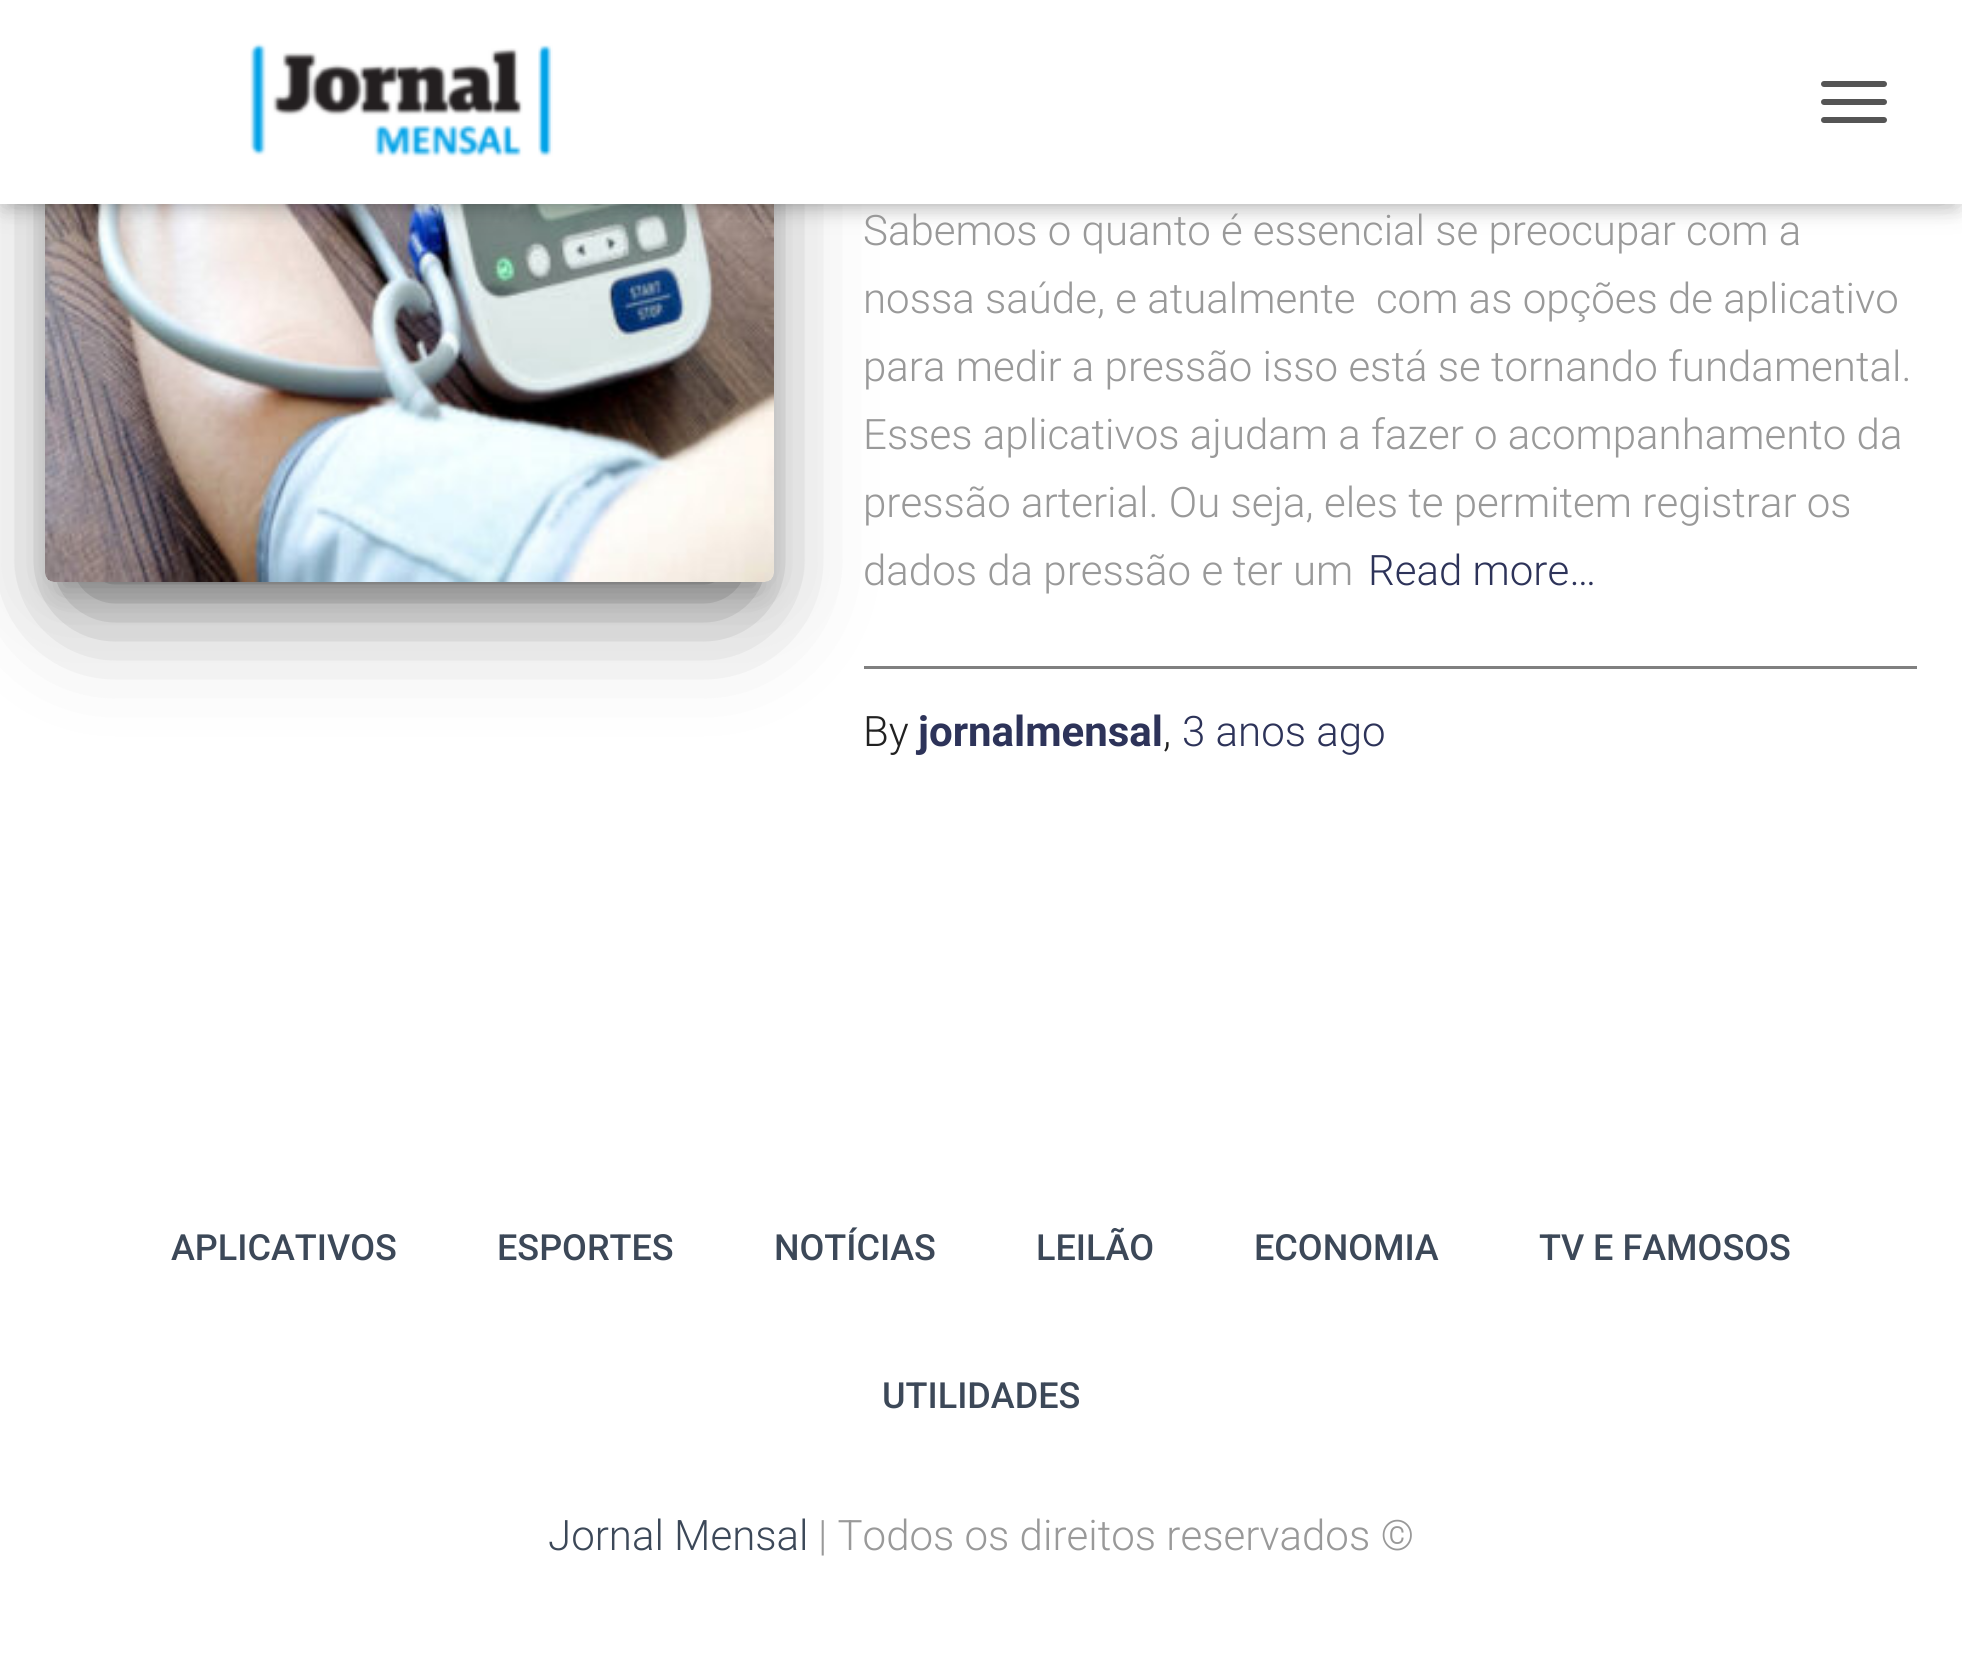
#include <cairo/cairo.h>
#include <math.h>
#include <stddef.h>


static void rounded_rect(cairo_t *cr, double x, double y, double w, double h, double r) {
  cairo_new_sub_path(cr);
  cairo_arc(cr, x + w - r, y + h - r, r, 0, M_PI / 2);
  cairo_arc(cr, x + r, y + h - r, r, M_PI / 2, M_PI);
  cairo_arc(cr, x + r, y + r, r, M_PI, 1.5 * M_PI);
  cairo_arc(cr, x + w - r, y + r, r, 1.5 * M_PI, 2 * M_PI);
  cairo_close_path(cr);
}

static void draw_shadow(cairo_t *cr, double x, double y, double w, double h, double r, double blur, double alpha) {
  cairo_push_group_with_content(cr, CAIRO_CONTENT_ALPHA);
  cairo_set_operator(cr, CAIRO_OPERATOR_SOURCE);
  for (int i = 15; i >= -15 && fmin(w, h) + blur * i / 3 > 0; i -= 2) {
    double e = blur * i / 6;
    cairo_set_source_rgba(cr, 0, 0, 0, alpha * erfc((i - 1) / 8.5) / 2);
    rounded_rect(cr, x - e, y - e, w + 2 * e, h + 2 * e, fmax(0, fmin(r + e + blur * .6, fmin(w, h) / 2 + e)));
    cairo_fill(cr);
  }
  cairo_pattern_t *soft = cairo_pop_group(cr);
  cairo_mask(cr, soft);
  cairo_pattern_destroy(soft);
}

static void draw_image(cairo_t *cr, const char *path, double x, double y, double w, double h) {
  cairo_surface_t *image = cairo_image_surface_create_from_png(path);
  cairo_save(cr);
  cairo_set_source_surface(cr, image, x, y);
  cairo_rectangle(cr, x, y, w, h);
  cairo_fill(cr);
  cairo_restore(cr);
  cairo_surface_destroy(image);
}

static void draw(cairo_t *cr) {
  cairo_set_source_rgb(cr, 1, 1, 1);
  cairo_paint(cr);
  cairo_set_source_rgb(cr, 0, 0, 0);
  draw_shadow(cr, 60, -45, 699, 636, 0, 15, 0.2);
  draw_shadow(cr, 45, -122, 729, 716, 9, 37.5, 0.12);
  draw_shadow(cr, 81, -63, 657, 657, 0, 57, 0.56);
  draw_image(cr, "images/2.png", 45, 204, 729, 378);
  draw_shadow(cr, 6, 18, 1950, 192, 0, 7.5, 0.1);
  draw_shadow(cr, 0, 3, 1962, 204, 0, 15, 0.12);
  draw_shadow(cr, 18, 21, 1926, 168, 0, 15, 0.42);
  cairo_set_source_rgb(cr, 1, 1, 1);
  cairo_rectangle(cr, 0, 0, 1962, 204);
  cairo_fill(cr);
  draw_image(cr, "images/1.png", 250, 43, 303, 114);
  cairo_set_source_rgb(cr, 85 / 255.0, 85 / 255.0, 85 / 255.0);
  rounded_rect(cr, 1821, 81, 66, 6, 3);
  cairo_fill(cr);
  rounded_rect(cr, 1821, 99, 66, 6, 3);
  cairo_fill(cr);
  rounded_rect(cr, 1821, 117, 66, 6, 3);
  cairo_fill(cr);
  cairo_set_source_rgb(cr, 128 / 255.0, 128 / 255.0, 128 / 255.0);
  cairo_rectangle(cr, 864, 666, 1053, 3);
  cairo_fill(cr);
  cairo_select_font_face(cr, "Roboto Light", CAIRO_FONT_SLANT_NORMAL, CAIRO_FONT_WEIGHT_NORMAL);
  cairo_set_font_size(cr, 42);
  cairo_set_source_rgb(cr, 153 / 255.0, 153 / 255.0, 153 / 255.0);
  cairo_move_to(cr, 863, 245);
  cairo_show_text(cr, "Sabemos o quanto é essencial se preocupar com a");
  cairo_move_to(cr, 863, 313);
  cairo_show_text(cr, "nossa saúde, e atualmente  com as opções de aplicativo");
  cairo_move_to(cr, 863, 381);
  cairo_show_text(cr, "para medir a pressão isso está se tornando fundamental.");
  cairo_move_to(cr, 863, 449);
  cairo_show_text(cr, "Esses aplicativos ajudam a fazer o acompanhamento da");
  cairo_move_to(cr, 863, 517);
  cairo_show_text(cr, "pressão arterial. Ou seja, eles te permitem registrar os");
  cairo_move_to(cr, 863, 585);
  cairo_show_text(cr, "dados da pressão e ter um");
  cairo_set_source_rgb(cr, 45 / 255.0, 51 / 255.0, 89 / 255.0);
  cairo_move_to(cr, 1368, 585);
  cairo_show_text(cr, "Read more…");
  cairo_set_source_rgb(cr, 33 / 255.0, 33 / 255.0, 33 / 255.0);
  cairo_move_to(cr, 863, 746);
  cairo_show_text(cr, "By");
  cairo_select_font_face(cr, "Roboto", CAIRO_FONT_SLANT_NORMAL, CAIRO_FONT_WEIGHT_BOLD);
  cairo_set_source_rgb(cr, 45 / 255.0, 51 / 255.0, 89 / 255.0);
  cairo_move_to(cr, 918, 746);
  cairo_show_text(cr, "jornalmensal");
  cairo_select_font_face(cr, "Roboto Light", CAIRO_FONT_SLANT_NORMAL, CAIRO_FONT_WEIGHT_NORMAL);
  cairo_set_source_rgb(cr, 33 / 255.0, 33 / 255.0, 33 / 255.0);
  cairo_move_to(cr, 1163, 746);
  cairo_show_text(cr, ",");
  cairo_set_source_rgb(cr, 45 / 255.0, 51 / 255.0, 89 / 255.0);
  cairo_move_to(cr, 1182, 746);
  cairo_show_text(cr, "3 anos ago");
  cairo_select_font_face(cr, "Roboto Medium", CAIRO_FONT_SLANT_NORMAL, CAIRO_FONT_WEIGHT_NORMAL);
  cairo_set_font_size(cr, 36);
  cairo_set_source_rgb(cr, 60 / 255.0, 72 / 255.0, 88 / 255.0);
  cairo_move_to(cr, 171, 1260);
  cairo_show_text(cr, "APLICATIVOS");
  cairo_move_to(cr, 497, 1260);
  cairo_show_text(cr, "ESPORTES");
  cairo_move_to(cr, 774, 1260);
  cairo_show_text(cr, "NOTÍCIAS");
  cairo_move_to(cr, 1036, 1260);
  cairo_show_text(cr, "LEILÃO");
  cairo_move_to(cr, 1254, 1260);
  cairo_show_text(cr, "ECONOMIA");
  cairo_move_to(cr, 1539, 1260);
  cairo_show_text(cr, "TV E FAMOSOS");
  cairo_move_to(cr, 882, 1408);
  cairo_show_text(cr, "UTILIDADES");
  cairo_select_font_face(cr, "Roboto Light", CAIRO_FONT_SLANT_NORMAL, CAIRO_FONT_WEIGHT_NORMAL);
  cairo_set_font_size(cr, 42);
  cairo_move_to(cr, 548, 1550);
  cairo_show_text(cr, "Jornal Mensal");
  cairo_set_source_rgb(cr, 153 / 255.0, 153 / 255.0, 153 / 255.0);
  cairo_move_to(cr, 818, 1550);
  cairo_show_text(cr, "| Todos os direitos reservados ©");
}

int main(void) {
  cairo_surface_t *surface = cairo_image_surface_create(CAIRO_FORMAT_RGB24, 1962, 1677);
  cairo_t *cr = cairo_create(surface);
  cairo_font_options_t *options = cairo_font_options_create();
  cairo_font_options_set_hint_metrics(options, CAIRO_HINT_METRICS_OFF);
  cairo_font_options_set_hint_style(options, CAIRO_HINT_STYLE_NONE);
  cairo_set_font_options(cr, options);
  cairo_set_miter_limit(cr, 4);
  draw(cr);
  cairo_surface_write_to_png(surface, "out.png");
  cairo_font_options_destroy(options);
  cairo_destroy(cr);
  cairo_surface_destroy(surface);
  return 0;
}
